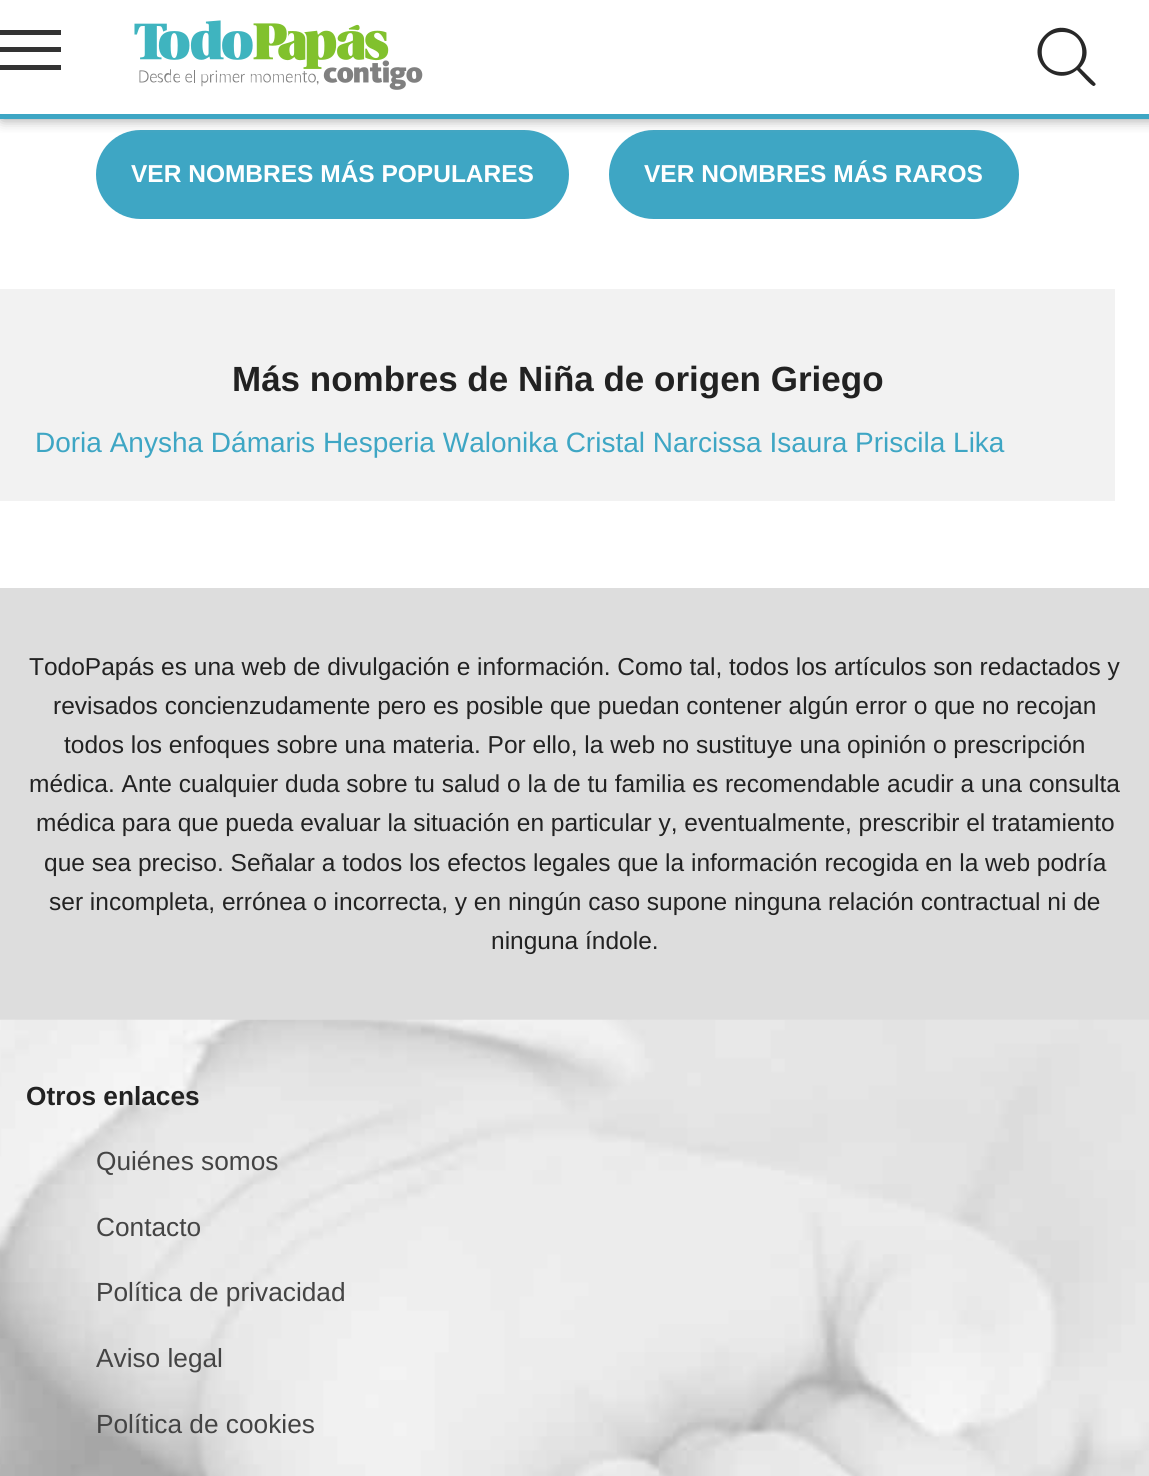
#include <cairo/cairo.h>
#include <math.h>
#include <stddef.h>


static void rounded_rect(cairo_t *cr, double x, double y, double w, double h, double r) {
  cairo_new_sub_path(cr);
  cairo_arc(cr, x + w - r, y + h - r, r, 0, M_PI / 2);
  cairo_arc(cr, x + r, y + h - r, r, M_PI / 2, M_PI);
  cairo_arc(cr, x + r, y + r, r, M_PI, 1.5 * M_PI);
  cairo_arc(cr, x + w - r, y + r, r, 1.5 * M_PI, 2 * M_PI);
  cairo_close_path(cr);
}

static void draw_shadow(cairo_t *cr, double x, double y, double w, double h, double r, double blur, double alpha) {
  cairo_push_group_with_content(cr, CAIRO_CONTENT_ALPHA);
  cairo_set_operator(cr, CAIRO_OPERATOR_SOURCE);
  for (int i = 15; i >= -15 && fmin(w, h) + blur * i / 3 > 0; i -= 2) {
    double e = blur * i / 6;
    cairo_set_source_rgba(cr, 0, 0, 0, alpha * erfc((i - 1) / 8.5) / 2);
    rounded_rect(cr, x - e, y - e, w + 2 * e, h + 2 * e, fmax(0, fmin(r + e + blur * .6, fmin(w, h) / 2 + e)));
    cairo_fill(cr);
  }
  cairo_pattern_t *soft = cairo_pop_group(cr);
  cairo_mask(cr, soft);
  cairo_pattern_destroy(soft);
}

static void draw_image(cairo_t *cr, const char *path, double x, double y, double w, double h) {
  cairo_surface_t *image = cairo_image_surface_create_from_png(path);
  cairo_save(cr);
  cairo_set_source_surface(cr, image, x, y);
  cairo_rectangle(cr, x, y, w, h);
  cairo_fill(cr);
  cairo_restore(cr);
  cairo_surface_destroy(image);
}

static void draw(cairo_t *cr) {
  cairo_set_source_rgb(cr, 1, 1, 1);
  cairo_paint(cr);
  cairo_set_source_rgb(cr, 62 / 255.0, 166 / 255.0, 196 / 255.0);
  rounded_rect(cr, 96, 130, 473, 89, 44.5);
  cairo_fill(cr);
  rounded_rect(cr, 609, 130, 410, 89, 44.5);
  cairo_fill(cr);
  cairo_save(cr);
  cairo_rectangle(cr, 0, 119, 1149, 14);
  cairo_clip(cr);
  cairo_set_source_rgb(cr, 153 / 255.0, 153 / 255.0, 153 / 255.0);
  draw_shadow(cr, 2, 0, 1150, 119, 0, 7, 1);
  cairo_restore(cr);
  cairo_rectangle(cr, 0, 114, 1149, 5);
  cairo_fill(cr);
  cairo_set_source_rgb(cr, 51 / 255.0, 51 / 255.0, 51 / 255.0);
  cairo_rectangle(cr, 0, 30, 61, 5);
  cairo_fill(cr);
  cairo_rectangle(cr, 0, 47, 61, 5);
  cairo_fill(cr);
  cairo_rectangle(cr, 0, 65, 61, 5);
  cairo_fill(cr);
  draw_image(cr, "images/1.png", 134, 20, 289, 70);
  cairo_set_source_rgb(cr, 40 / 255.0, 40 / 255.0, 40 / 255.0);
  cairo_new_path(cr);
  cairo_move_to(cr, 1095, 83);
  cairo_line_to(cr, 1080, 68);
  cairo_curve_to(cr, 1101, 46, 1067, 13, 1045, 35);
  cairo_curve_to(cr, 1023, 57, 1054, 89, 1077, 70);
  cairo_curve_to(cr, 1080, 73, 1092, 87, 1094, 86);
  cairo_curve_to(cr, 1096, 85, 1096, 84, 1095, 83);
  cairo_close_path(cr);
  cairo_move_to(cr, 1062, 72);
  cairo_curve_to(cr, 1035, 72, 1035, 32, 1062, 32);
  cairo_curve_to(cr, 1089, 32, 1089, 72, 1062, 72);
  cairo_close_path(cr);
  cairo_fill(cr);
  cairo_set_source_rgb(cr, 242 / 255.0, 242 / 255.0, 242 / 255.0);
  cairo_rectangle(cr, 0, 289, 1115, 212);
  cairo_fill(cr);
  cairo_set_source_rgb(cr, 221 / 255.0, 221 / 255.0, 221 / 255.0);
  cairo_rectangle(cr, 0, 588, 1149, 432);
  cairo_fill(cr);
  draw_image(cr, "images/2.png", 0, 1019, 1149, 457);
  cairo_select_font_face(cr, "Liberation Sans", CAIRO_FONT_SLANT_NORMAL, CAIRO_FONT_WEIGHT_BOLD);
  cairo_set_font_size(cr, 24.5);
  cairo_set_source_rgb(cr, 1, 1, 1);
  cairo_move_to(cr, 131, 182);
  cairo_show_text(cr, "VER NOMBRES MÁS POPULARES");
  cairo_move_to(cr, 644, 182);
  cairo_show_text(cr, "VER NOMBRES MÁS RAROS");
  cairo_set_font_size(cr, 35);
  cairo_set_source_rgb(cr, 34 / 255.0, 34 / 255.0, 34 / 255.0);
  cairo_move_to(cr, 232, 391);
  cairo_show_text(cr, "Más nombres de Niña de origen Griego");
  cairo_select_font_face(cr, "Liberation Sans", CAIRO_FONT_SLANT_NORMAL, CAIRO_FONT_WEIGHT_NORMAL);
  cairo_set_font_size(cr, 28);
  cairo_set_source_rgb(cr, 62 / 255.0, 166 / 255.0, 196 / 255.0);
  cairo_move_to(cr, 35, 452);
  cairo_show_text(cr, "Doria Anysha Dámaris Hesperia Walonika Cristal Narcissa Isaura Priscila Lika");
  cairo_set_font_size(cr, 24.5);
  cairo_set_source_rgb(cr, 34 / 255.0, 34 / 255.0, 34 / 255.0);
  cairo_move_to(cr, 29, 675);
  cairo_show_text(cr, "TodoPapás es una web de divulgación e información. Como tal, todos los artículos son redactados y");
  cairo_move_to(cr, 53, 714);
  cairo_show_text(cr, "revisados concienzudamente pero es posible que puedan contener algún error o que no recojan");
  cairo_move_to(cr, 64, 753);
  cairo_show_text(cr, "todos los enfoques sobre una materia. Por ello, la web no sustituye una opinión o prescripción");
  cairo_move_to(cr, 29, 792);
  cairo_show_text(cr, "médica. Ante cualquier duda sobre tu salud o la de tu familia es recomendable acudir a una consulta");
  cairo_move_to(cr, 36, 831);
  cairo_show_text(cr, "médica para que pueda evaluar la situación en particular y, eventualmente, prescribir el tratamiento");
  cairo_move_to(cr, 44, 871);
  cairo_show_text(cr, "que sea preciso. Señalar a todos los efectos legales que la información recogida en la web podría");
  cairo_move_to(cr, 49, 910);
  cairo_show_text(cr, "ser incompleta, errónea o incorrecta, y en ningún caso supone ninguna relación contractual ni de");
  cairo_move_to(cr, 491, 949);
  cairo_show_text(cr, "ninguna índole.");
  cairo_select_font_face(cr, "Liberation Sans", CAIRO_FONT_SLANT_NORMAL, CAIRO_FONT_WEIGHT_BOLD);
  cairo_set_font_size(cr, 26.25);
  cairo_move_to(cr, 26, 1105);
  cairo_show_text(cr, "Otros enlaces");
  cairo_select_font_face(cr, "Liberation Sans", CAIRO_FONT_SLANT_NORMAL, CAIRO_FONT_WEIGHT_NORMAL);
  cairo_set_source_rgb(cr, 68 / 255.0, 68 / 255.0, 68 / 255.0);
  cairo_move_to(cr, 96, 1170);
  cairo_show_text(cr, "Quiénes somos");
  cairo_move_to(cr, 96, 1236);
  cairo_show_text(cr, "Contacto");
  cairo_move_to(cr, 96, 1301);
  cairo_show_text(cr, "Política de privacidad");
  cairo_move_to(cr, 96, 1367);
  cairo_show_text(cr, "Aviso legal");
  cairo_move_to(cr, 96, 1433);
  cairo_show_text(cr, "Política de cookies");
}

int main(void) {
  cairo_surface_t *surface = cairo_image_surface_create(CAIRO_FORMAT_RGB24, 1149, 1476);
  cairo_t *cr = cairo_create(surface);
  cairo_font_options_t *options = cairo_font_options_create();
  cairo_font_options_set_hint_metrics(options, CAIRO_HINT_METRICS_OFF);
  cairo_font_options_set_hint_style(options, CAIRO_HINT_STYLE_NONE);
  cairo_set_font_options(cr, options);
  cairo_set_miter_limit(cr, 4);
  draw(cr);
  cairo_surface_write_to_png(surface, "out.png");
  cairo_font_options_destroy(options);
  cairo_destroy(cr);
  cairo_surface_destroy(surface);
  return 0;
}
